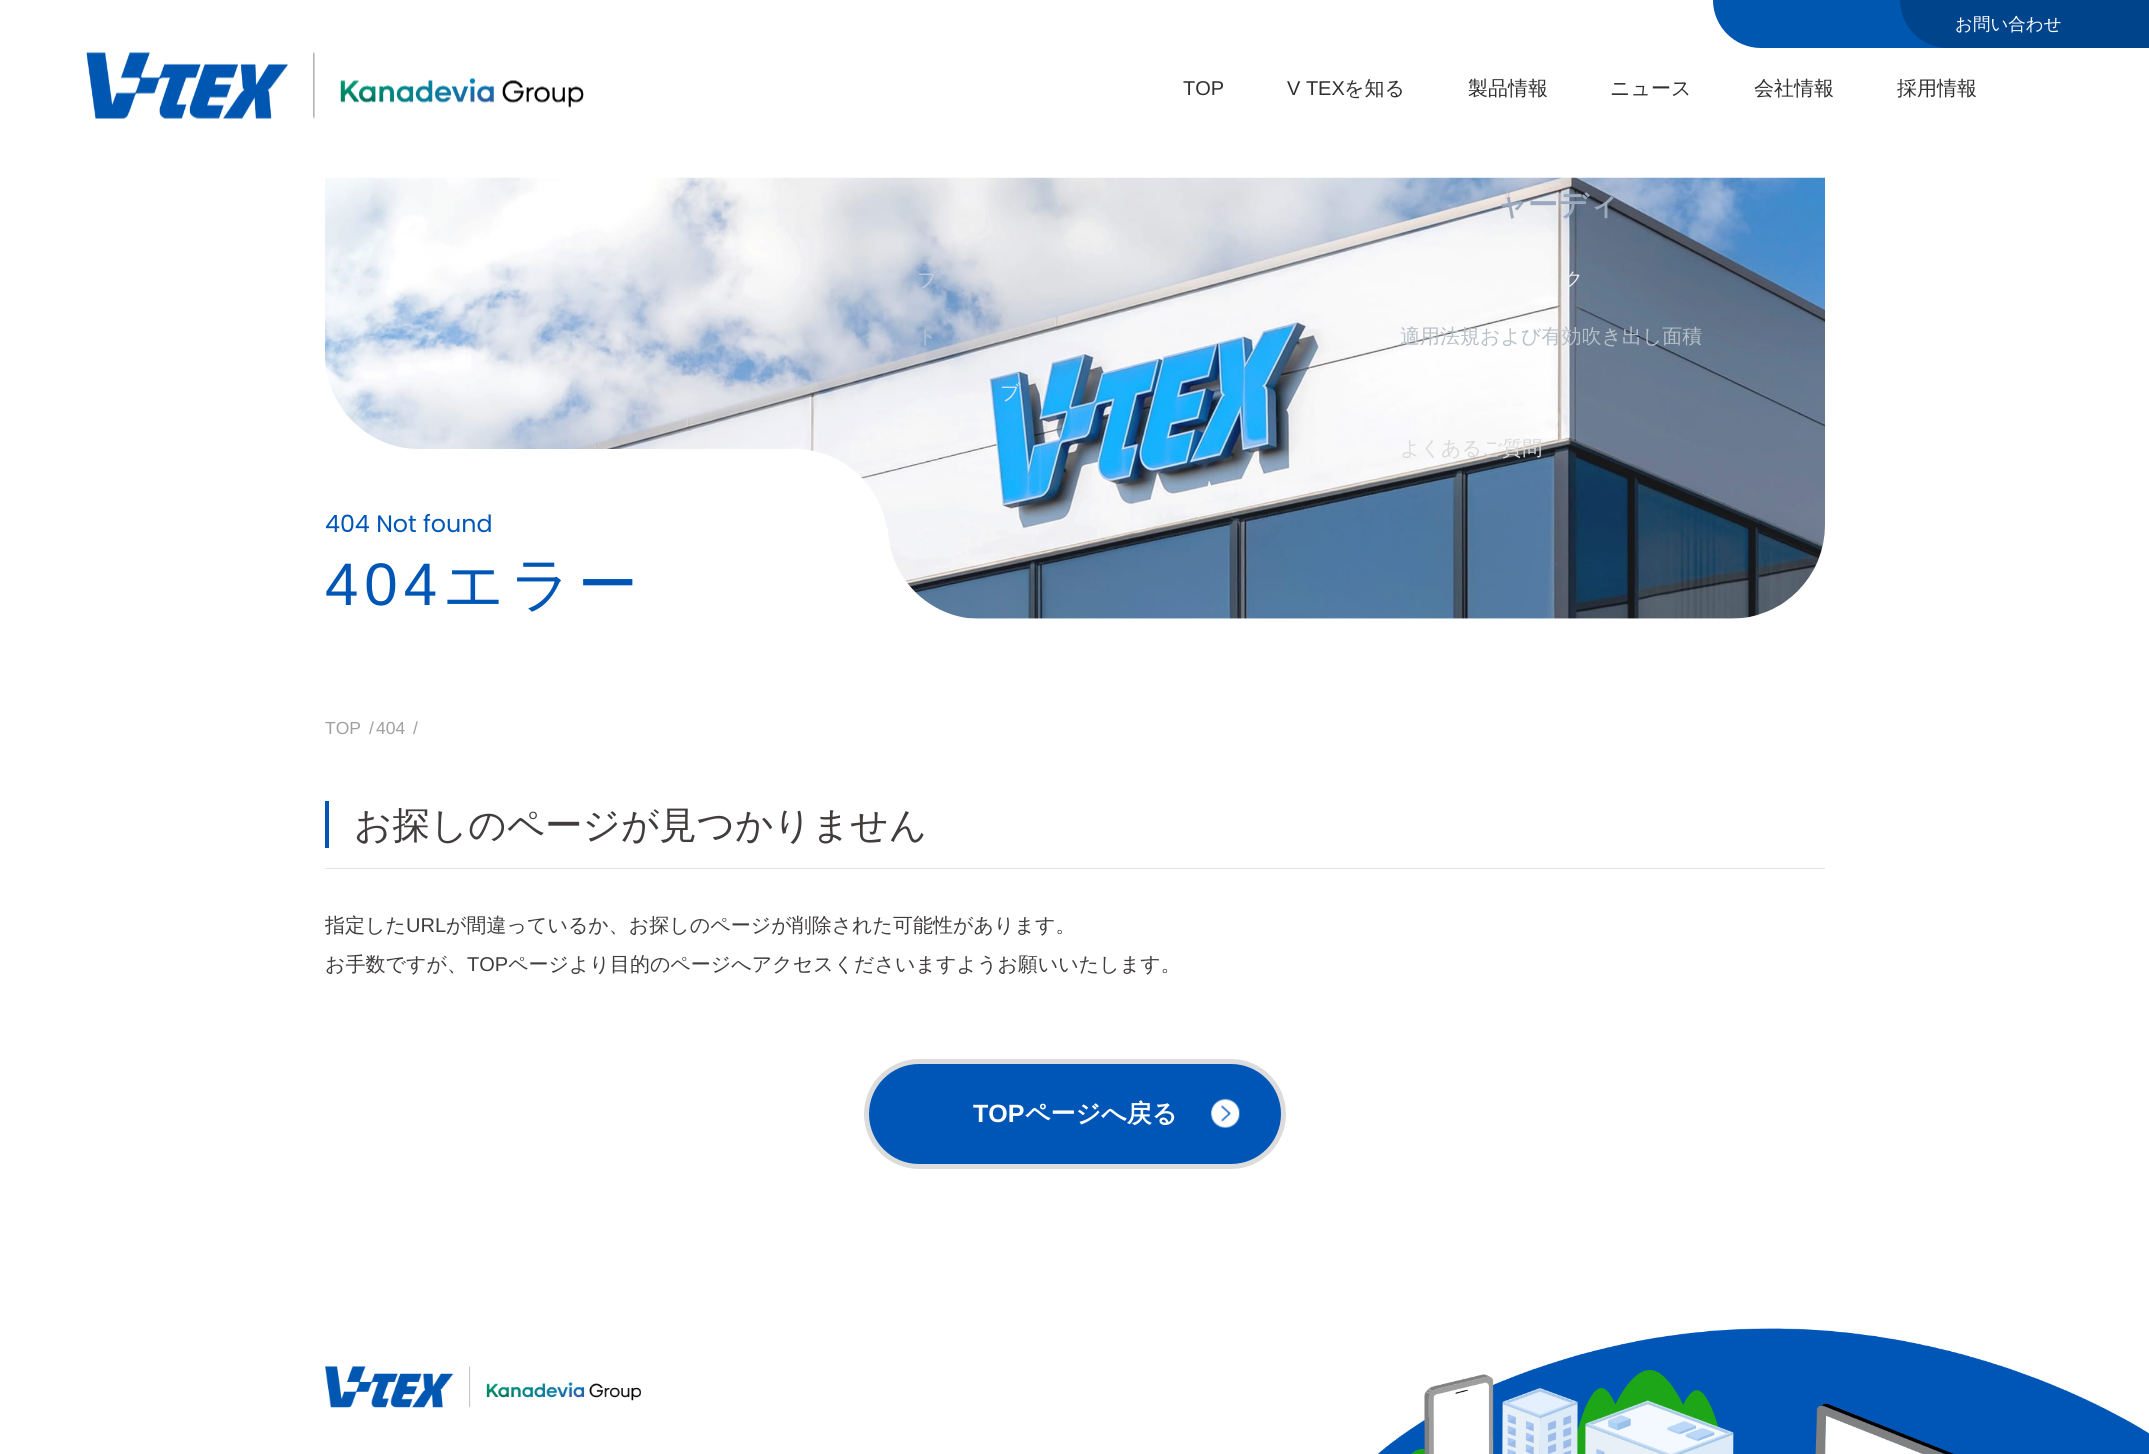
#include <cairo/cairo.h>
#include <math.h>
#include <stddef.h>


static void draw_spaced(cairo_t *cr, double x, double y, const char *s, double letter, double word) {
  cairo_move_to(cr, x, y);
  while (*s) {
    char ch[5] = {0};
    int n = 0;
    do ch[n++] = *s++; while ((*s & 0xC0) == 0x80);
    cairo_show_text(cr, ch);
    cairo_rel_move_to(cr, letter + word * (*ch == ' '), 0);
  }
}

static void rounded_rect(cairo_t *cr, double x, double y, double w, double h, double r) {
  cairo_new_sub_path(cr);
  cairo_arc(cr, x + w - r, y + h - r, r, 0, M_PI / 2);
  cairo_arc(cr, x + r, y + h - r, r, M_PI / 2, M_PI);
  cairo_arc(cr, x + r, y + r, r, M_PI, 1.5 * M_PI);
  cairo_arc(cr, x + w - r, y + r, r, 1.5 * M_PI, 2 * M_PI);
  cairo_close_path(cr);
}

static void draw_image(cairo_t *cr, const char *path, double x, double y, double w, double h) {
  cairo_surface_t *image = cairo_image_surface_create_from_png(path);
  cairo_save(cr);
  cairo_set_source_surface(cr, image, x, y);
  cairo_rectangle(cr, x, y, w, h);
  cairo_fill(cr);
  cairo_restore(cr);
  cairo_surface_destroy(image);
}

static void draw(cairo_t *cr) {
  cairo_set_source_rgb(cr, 1, 1, 1);
  cairo_paint(cr);
  draw_image(cr, "images/1.png", 86, 52, 498, 67);
  cairo_set_source_rgb(cr, 0, 87 / 255.0, 176 / 255.0);
  cairo_new_path(cr);
  cairo_move_to(cr, 1713, 0);
  cairo_line_to(cr, 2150, 0);
  cairo_line_to(cr, 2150, 48);
  cairo_line_to(cr, 1761, 48);
  cairo_curve_to(cr, 1734.5, 48, 1713, 26.5, 1713, 0);
  cairo_close_path(cr);
  cairo_fill(cr);
  cairo_set_source_rgb(cr, 0, 68 / 255.0, 140 / 255.0);
  cairo_new_path(cr);
  cairo_move_to(cr, 1900, 0);
  cairo_line_to(cr, 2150, 0);
  cairo_line_to(cr, 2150, 48);
  cairo_line_to(cr, 1948, 48);
  cairo_curve_to(cr, 1921.5, 48, 1900, 26.5, 1900, 0);
  cairo_close_path(cr);
  cairo_fill(cr);
  draw_image(cr, "images/2.png", 325, 177, 1500, 442);
  cairo_set_source_rgb(cr, 1, 1, 1);
  cairo_new_path(cr);
  cairo_move_to(cr, 325, 449);
  cairo_line_to(cr, 794, 449);
  cairo_curve_to(cr, 846, 449, 888, 491, 888, 543);
  cairo_line_to(cr, 888, 619);
  cairo_line_to(cr, 325, 619);
  cairo_close_path(cr);
  cairo_fill(cr);
  cairo_save(cr);
  cairo_rectangle(cr, 325, 178, 1500, 441);
  cairo_clip(cr);
  cairo_new_path(cr);
  cairo_move_to(cr, 231, 358);
  cairo_line_to(cr, 231, 449);
  cairo_curve_to(cr, 231, 501, 273, 543, 325, 543);
  cairo_line_to(cr, 416, 543);
  cairo_line_to(cr, 416, 449);
  cairo_curve_to(cr, 366, 447, 327, 407, 325, 358);
  cairo_close_path(cr);
  cairo_fill(cr);
  cairo_new_path(cr);
  cairo_move_to(cr, 794, 528);
  cairo_line_to(cr, 794, 619);
  cairo_curve_to(cr, 794, 671, 836, 713, 888, 713);
  cairo_line_to(cr, 979, 713);
  cairo_line_to(cr, 979, 619);
  cairo_curve_to(cr, 929, 618, 889, 578, 888, 528);
  cairo_close_path(cr);
  cairo_fill(cr);
  cairo_restore(cr);
  cairo_set_source_rgb(cr, 226 / 255.0, 226 / 255.0, 226 / 255.0);
  cairo_rectangle(cr, 325, 868, 1500, 1);
  cairo_fill(cr);
  cairo_set_source_rgb(cr, 0, 86 / 255.0, 182 / 255.0);
  cairo_rectangle(cr, 325, 801, 4, 47);
  cairo_fill(cr);
  rounded_rect(cr, 866.5, 1061.5, 417, 105, 52.5);
  cairo_fill_preserve(cr);
  cairo_set_source_rgb(cr, 220 / 255.0, 220 / 255.0, 220 / 255.0);
  cairo_set_line_width(cr, 5);
  cairo_stroke(cr);
  draw_image(cr, "images/3.png", 1211, 1098, 29, 30);
  draw_image(cr, "images/4.png", 325, 1366, 316, 42);
  draw_image(cr, "images/5.png", 1378, 1328, 771, 126);
  cairo_select_font_face(cr, "WenQuanYi Zen Hei Medium", CAIRO_FONT_SLANT_NORMAL, CAIRO_FONT_WEIGHT_NORMAL);
  cairo_set_font_size(cr, 17.5);
  cairo_set_source_rgb(cr, 1, 1, 1);
  cairo_move_to(cr, 1955, 30);
  cairo_show_text(cr, "お問い合わせ");
  cairo_set_font_size(cr, 20);
  cairo_set_source_rgb(cr, 48 / 255.0, 48 / 255.0, 48 / 255.0);
  cairo_move_to(cr, 1468, 95);
  cairo_show_text(cr, "製品情報");
  cairo_set_source_rgb(cr, 195 / 255.0, 204 / 255.0, 220 / 255.0);
  cairo_move_to(cr, 917, 286);
  cairo_show_text(cr, "ブ");
  cairo_set_source_rgb(cr, 176 / 255.0, 191 / 255.0, 212 / 255.0);
  cairo_move_to(cr, 917, 343);
  cairo_show_text(cr, "ト");
  cairo_set_source_rgb(cr, 209 / 255.0, 229 / 255.0, 244 / 255.0);
  cairo_move_to(cr, 1000, 399);
  cairo_show_text(cr, "ブ");
  cairo_select_font_face(cr, "WenQuanYi Zen Hei", CAIRO_FONT_SLANT_NORMAL, CAIRO_FONT_WEIGHT_BOLD);
  cairo_set_font_size(cr, 30);
  cairo_set_source_rgb(cr, 156 / 255.0, 169 / 255.0, 189 / 255.0);
  cairo_move_to(cr, 1497, 215);
  cairo_show_text(cr, "ャーディ");
  cairo_select_font_face(cr, "WenQuanYi Zen Hei Medium", CAIRO_FONT_SLANT_NORMAL, CAIRO_FONT_WEIGHT_NORMAL);
  cairo_set_font_size(cr, 20);
  cairo_set_source_rgb(cr, 235 / 255.0, 236 / 255.0, 238 / 255.0);
  cairo_move_to(cr, 1563, 286);
  cairo_show_text(cr, "ク");
  cairo_set_source_rgb(cr, 183 / 255.0, 191 / 255.0, 200 / 255.0);
  cairo_move_to(cr, 1400, 343);
  cairo_show_text(cr, "適用法規および有効吹き出し面積");
  cairo_set_source_rgb(cr, 217 / 255.0, 217 / 255.0, 217 / 255.0);
  cairo_move_to(cr, 1400, 455);
  cairo_show_text(cr, "よくあるご質問");
  cairo_set_source_rgb(cr, 48 / 255.0, 48 / 255.0, 48 / 255.0);
  cairo_move_to(cr, 1754, 95);
  cairo_show_text(cr, "会社情報");
  cairo_move_to(cr, 1897, 95);
  cairo_show_text(cr, "採用情報");
  cairo_select_font_face(cr, "Liberation Sans", CAIRO_FONT_SLANT_NORMAL, CAIRO_FONT_WEIGHT_NORMAL);
  cairo_move_to(cr, 1183, 95);
  cairo_show_text(cr, "TOP");
  cairo_move_to(cr, 1287, 95);
  cairo_show_text(cr, "V TEX");
  cairo_select_font_face(cr, "WenQuanYi Zen Hei Medium", CAIRO_FONT_SLANT_NORMAL, CAIRO_FONT_WEIGHT_NORMAL);
  cairo_move_to(cr, 1344, 95);
  cairo_show_text(cr, "を知る");
  cairo_move_to(cr, 1610, 95);
  cairo_show_text(cr, "ニュース");
  cairo_select_font_face(cr, "Poppins", CAIRO_FONT_SLANT_NORMAL, CAIRO_FONT_WEIGHT_NORMAL);
  cairo_set_font_size(cr, 23.75);
  cairo_set_source_rgb(cr, 0, 86 / 255.0, 182 / 255.0);
  cairo_move_to(cr, 325, 532);
  cairo_show_text(cr, "404 Not found");
  cairo_select_font_face(cr, "Liberation Sans", CAIRO_FONT_SLANT_NORMAL, CAIRO_FONT_WEIGHT_NORMAL);
  cairo_set_font_size(cr, 60);
  draw_spaced(cr, 325, 605, "404", 6, 0);
  cairo_select_font_face(cr, "WenQuanYi Zen Hei Medium", CAIRO_FONT_SLANT_NORMAL, CAIRO_FONT_WEIGHT_NORMAL);
  draw_spaced(cr, 443, 605, "エラー", 6, 0);
  cairo_select_font_face(cr, "Liberation Sans", CAIRO_FONT_SLANT_NORMAL, CAIRO_FONT_WEIGHT_NORMAL);
  cairo_set_font_size(cr, 17.5);
  cairo_set_source_rgb(cr, 160 / 255.0, 160 / 255.0, 160 / 255.0);
  cairo_move_to(cr, 325, 734);
  cairo_show_text(cr, "TOP");
  cairo_move_to(cr, 369, 734);
  cairo_show_text(cr, "/");
  cairo_move_to(cr, 376, 734);
  cairo_show_text(cr, "404");
  cairo_move_to(cr, 413, 734);
  cairo_show_text(cr, "/");
  cairo_select_font_face(cr, "WenQuanYi Zen Hei Medium", CAIRO_FONT_SLANT_NORMAL, CAIRO_FONT_WEIGHT_NORMAL);
  cairo_set_font_size(cr, 37.5);
  cairo_set_source_rgb(cr, 64 / 255.0, 61 / 255.0, 60 / 255.0);
  cairo_move_to(cr, 354, 838);
  cairo_show_text(cr, "お探しのページが見つかりません");
  cairo_set_font_size(cr, 20);
  cairo_move_to(cr, 325, 932);
  cairo_show_text(cr, "指定した");
  cairo_select_font_face(cr, "Liberation Sans", CAIRO_FONT_SLANT_NORMAL, CAIRO_FONT_WEIGHT_NORMAL);
  cairo_move_to(cr, 406, 932);
  cairo_show_text(cr, "URL");
  cairo_select_font_face(cr, "WenQuanYi Zen Hei Medium", CAIRO_FONT_SLANT_NORMAL, CAIRO_FONT_WEIGHT_NORMAL);
  cairo_move_to(cr, 446, 932);
  cairo_show_text(cr, "が間違っているか、お探しのページが削除された可能性があります。");
  cairo_move_to(cr, 325, 971);
  cairo_show_text(cr, "お手数ですが、");
  cairo_select_font_face(cr, "Liberation Sans", CAIRO_FONT_SLANT_NORMAL, CAIRO_FONT_WEIGHT_NORMAL);
  cairo_move_to(cr, 467, 971);
  cairo_show_text(cr, "TOP");
  cairo_select_font_face(cr, "WenQuanYi Zen Hei Medium", CAIRO_FONT_SLANT_NORMAL, CAIRO_FONT_WEIGHT_NORMAL);
  cairo_move_to(cr, 508, 971);
  cairo_show_text(cr, "ページより目的のページへアクセスくださいますようお願いいたします。");
  cairo_select_font_face(cr, "Liberation Sans", CAIRO_FONT_SLANT_NORMAL, CAIRO_FONT_WEIGHT_BOLD);
  cairo_set_font_size(cr, 25);
  cairo_set_source_rgb(cr, 1, 1, 1);
  cairo_move_to(cr, 973, 1122);
  cairo_show_text(cr, "TOP");
  cairo_select_font_face(cr, "WenQuanYi Zen Hei", CAIRO_FONT_SLANT_NORMAL, CAIRO_FONT_WEIGHT_BOLD);
  cairo_move_to(cr, 1025, 1122);
  cairo_show_text(cr, "ページへ戻る");
}

int main(void) {
  cairo_surface_t *surface = cairo_image_surface_create(CAIRO_FORMAT_RGB24, 2149, 1454);
  cairo_t *cr = cairo_create(surface);
  cairo_font_options_t *options = cairo_font_options_create();
  cairo_font_options_set_hint_metrics(options, CAIRO_HINT_METRICS_OFF);
  cairo_font_options_set_hint_style(options, CAIRO_HINT_STYLE_NONE);
  cairo_set_font_options(cr, options);
  cairo_set_miter_limit(cr, 4);
  draw(cr);
  cairo_surface_write_to_png(surface, "out.png");
  cairo_font_options_destroy(options);
  cairo_destroy(cr);
  cairo_surface_destroy(surface);
  return 0;
}
